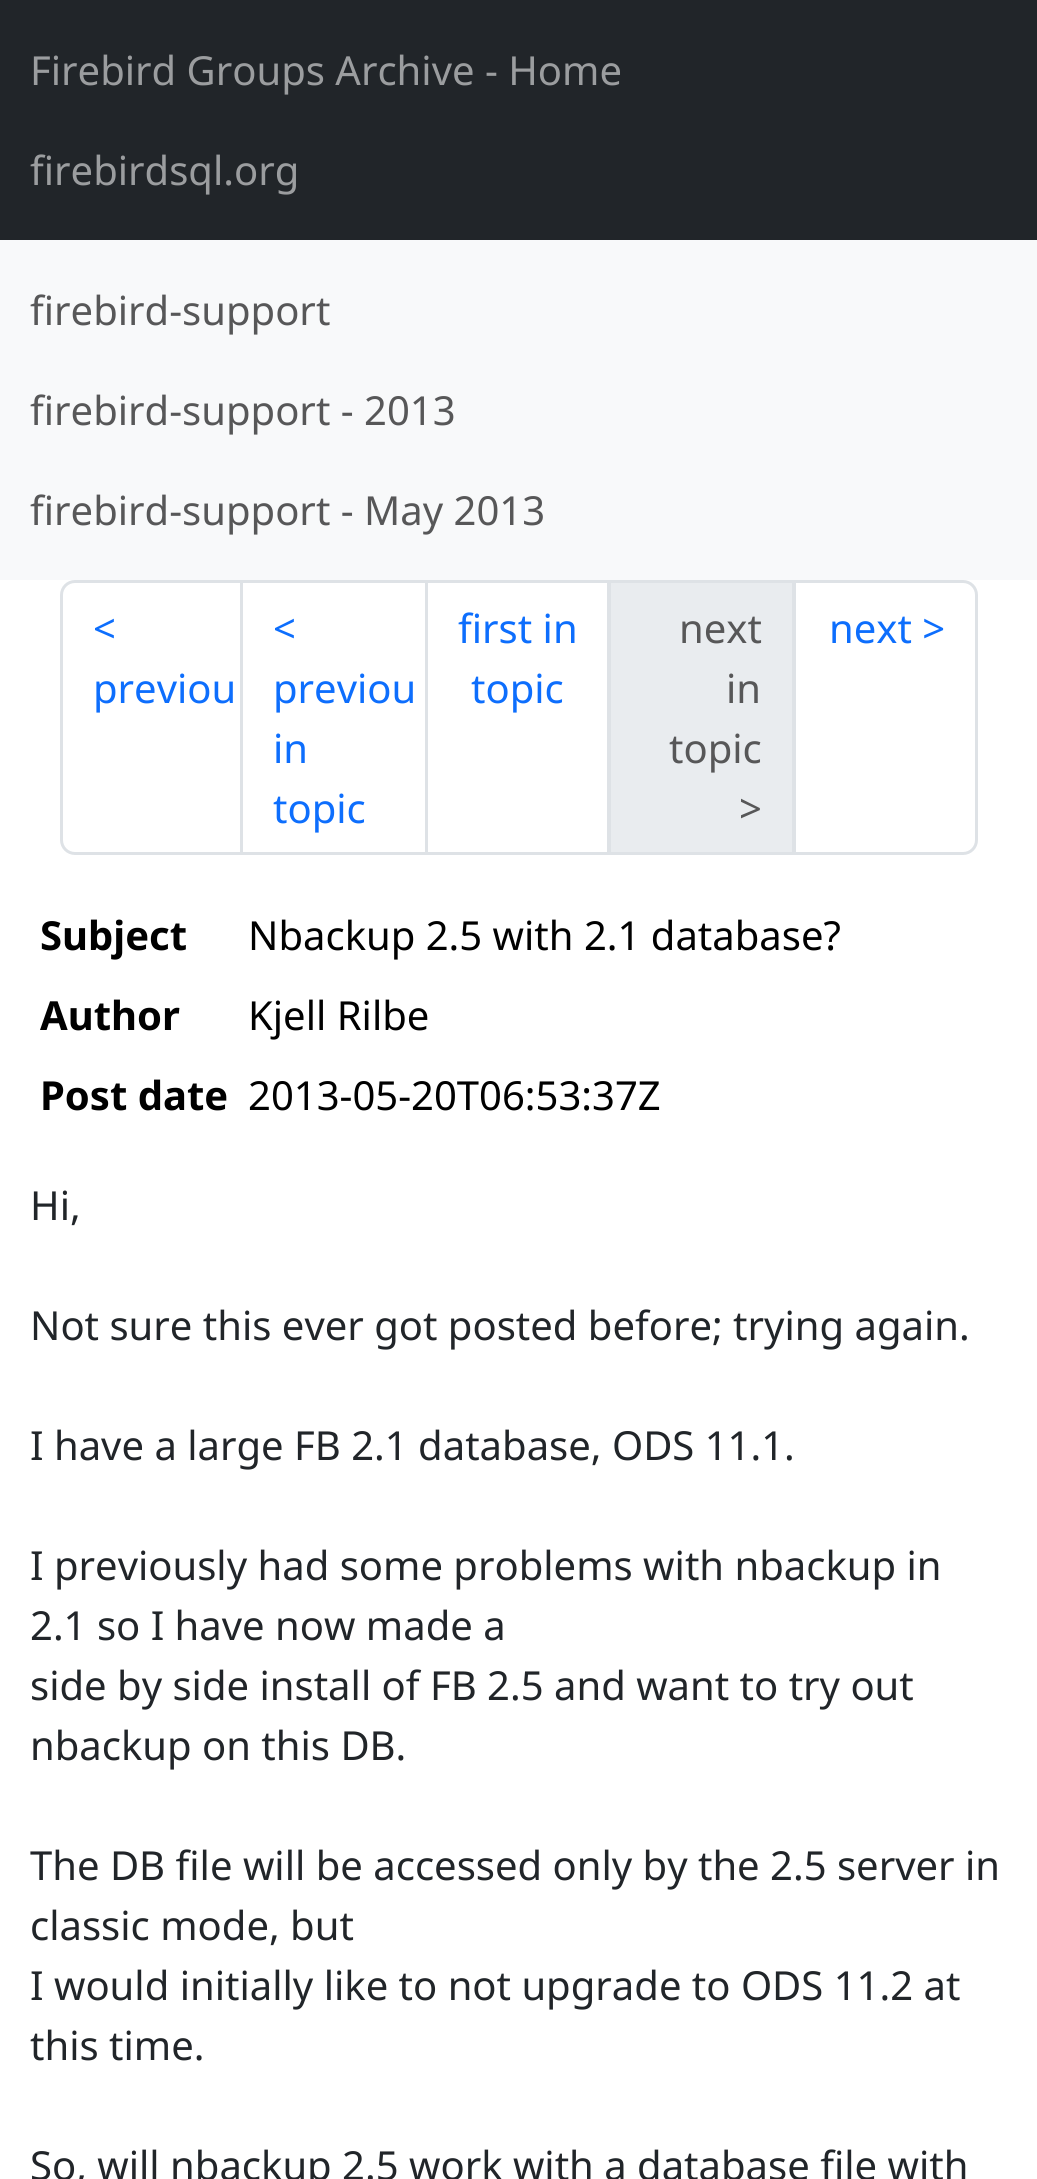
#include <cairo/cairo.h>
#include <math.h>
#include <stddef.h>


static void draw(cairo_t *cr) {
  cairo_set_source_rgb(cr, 1, 1, 1);
  cairo_paint(cr);
  cairo_set_source_rgb(cr, 33 / 255.0, 37 / 255.0, 41 / 255.0);
  cairo_rectangle(cr, 0, 0, 1037, 240);
  cairo_fill(cr);
  cairo_set_source_rgb(cr, 248 / 255.0, 249 / 255.0, 250 / 255.0);
  cairo_rectangle(cr, 0, 240, 1037, 340);
  cairo_fill(cr);
  cairo_new_path(cr);
  cairo_move_to(cr, 75, 581.5);
  cairo_line_to(cr, 241.5, 581.5);
  cairo_line_to(cr, 241.5, 853.5);
  cairo_line_to(cr, 75, 853.5);
  cairo_curve_to(cr, 67.5, 853.5, 61.5, 847.5, 61.5, 840);
  cairo_line_to(cr, 61.5, 595);
  cairo_curve_to(cr, 61.5, 587.5, 67.5, 581.5, 75, 581.5);
  cairo_close_path(cr);
  cairo_set_source_rgb(cr, 222 / 255.0, 226 / 255.0, 230 / 255.0);
  cairo_set_line_width(cr, 3);
  cairo_stroke(cr);
  cairo_rectangle(cr, 241.5, 581.5, 185, 272);
  cairo_stroke(cr);
  cairo_rectangle(cr, 426.5, 581.5, 182, 272);
  cairo_stroke(cr);
  cairo_set_source_rgb(cr, 233 / 255.0, 236 / 255.0, 239 / 255.0);
  cairo_rectangle(cr, 609.5, 581.5, 184, 272);
  cairo_fill_preserve(cr);
  cairo_set_source_rgb(cr, 222 / 255.0, 226 / 255.0, 230 / 255.0);
  cairo_stroke(cr);
  cairo_set_source_rgb(cr, 1, 1, 1);
  cairo_new_path(cr);
  cairo_move_to(cr, 794.5, 581.5);
  cairo_line_to(cr, 963, 581.5);
  cairo_curve_to(cr, 970.5, 581.5, 976.5, 587.5, 976.5, 595);
  cairo_line_to(cr, 976.5, 840);
  cairo_curve_to(cr, 976.5, 847.5, 970.5, 853.5, 963, 853.5);
  cairo_line_to(cr, 794.5, 853.5);
  cairo_close_path(cr);
  cairo_fill_preserve(cr);
  cairo_set_source_rgb(cr, 222 / 255.0, 226 / 255.0, 230 / 255.0);
  cairo_stroke(cr);
  cairo_select_font_face(cr, "Noto Sans", CAIRO_FONT_SLANT_NORMAL, CAIRO_FONT_WEIGHT_NORMAL);
  cairo_set_font_size(cr, 40);
  cairo_set_source_rgb(cr, 155 / 255.0, 157 / 255.0, 159 / 255.0);
  cairo_move_to(cr, 30, 85);
  cairo_show_text(cr, "Firebird Groups Archive - Home");
  cairo_move_to(cr, 30, 185);
  cairo_show_text(cr, "firebirdsql.org");
  cairo_set_source_rgb(cr, 87 / 255.0, 87 / 255.0, 88 / 255.0);
  cairo_move_to(cr, 30, 325);
  cairo_show_text(cr, "firebird-support");
  cairo_move_to(cr, 30, 425);
  cairo_show_text(cr, "firebird-support - 2013");
  cairo_move_to(cr, 30, 525);
  cairo_show_text(cr, "firebird-support - May 2013");
  cairo_set_source_rgb(cr, 13 / 255.0, 110 / 255.0, 253 / 255.0);
  cairo_move_to(cr, 93, 643);
  cairo_show_text(cr, "<");
  cairo_move_to(cr, 93, 703);
  cairo_show_text(cr, "previou");
  cairo_move_to(cr, 273, 643);
  cairo_show_text(cr, "<");
  cairo_move_to(cr, 273, 703);
  cairo_show_text(cr, "previou");
  cairo_move_to(cr, 273, 763);
  cairo_show_text(cr, "in");
  cairo_move_to(cr, 273, 823);
  cairo_show_text(cr, "topic");
  cairo_move_to(cr, 458, 643);
  cairo_show_text(cr, "first in");
  cairo_move_to(cr, 471, 703);
  cairo_show_text(cr, "topic");
  cairo_set_source_rgb(cr, 87 / 255.0, 87 / 255.0, 88 / 255.0);
  cairo_move_to(cr, 679, 643);
  cairo_show_text(cr, "next");
  cairo_move_to(cr, 726, 703);
  cairo_show_text(cr, "in");
  cairo_move_to(cr, 669, 763);
  cairo_show_text(cr, "topic");
  cairo_move_to(cr, 739, 823);
  cairo_show_text(cr, ">");
  cairo_set_source_rgb(cr, 13 / 255.0, 110 / 255.0, 253 / 255.0);
  cairo_move_to(cr, 829, 643);
  cairo_show_text(cr, "next >");
  cairo_select_font_face(cr, "Noto Sans", CAIRO_FONT_SLANT_NORMAL, CAIRO_FONT_WEIGHT_BOLD);
  cairo_set_source_rgb(cr, 0, 0, 0);
  cairo_move_to(cr, 40, 950);
  cairo_show_text(cr, "Subject");
  cairo_select_font_face(cr, "Noto Sans", CAIRO_FONT_SLANT_NORMAL, CAIRO_FONT_WEIGHT_NORMAL);
  cairo_move_to(cr, 248, 950);
  cairo_show_text(cr, "Nbackup 2.5 with 2.1 database?");
  cairo_select_font_face(cr, "Noto Sans", CAIRO_FONT_SLANT_NORMAL, CAIRO_FONT_WEIGHT_BOLD);
  cairo_move_to(cr, 40, 1030);
  cairo_show_text(cr, "Author");
  cairo_select_font_face(cr, "Noto Sans", CAIRO_FONT_SLANT_NORMAL, CAIRO_FONT_WEIGHT_NORMAL);
  cairo_move_to(cr, 248, 1030);
  cairo_show_text(cr, "Kjell Rilbe");
  cairo_select_font_face(cr, "Noto Sans", CAIRO_FONT_SLANT_NORMAL, CAIRO_FONT_WEIGHT_BOLD);
  cairo_move_to(cr, 40, 1110);
  cairo_show_text(cr, "Post date");
  cairo_select_font_face(cr, "Noto Sans", CAIRO_FONT_SLANT_NORMAL, CAIRO_FONT_WEIGHT_NORMAL);
  cairo_move_to(cr, 248, 1110);
  cairo_show_text(cr, "2013-05-20T06:53:37Z");
  cairo_set_source_rgb(cr, 33 / 255.0, 37 / 255.0, 41 / 255.0);
  cairo_move_to(cr, 30, 1220);
  cairo_show_text(cr, "Hi,");
  cairo_move_to(cr, 30, 1340);
  cairo_show_text(cr, "Not sure this ever got posted before; trying again.");
  cairo_move_to(cr, 30, 1460);
  cairo_show_text(cr, "I have a large FB 2.1 database, ODS 11.1.");
  cairo_move_to(cr, 30, 1580);
  cairo_show_text(cr, "I previously had some problems with nbackup in");
  cairo_move_to(cr, 30, 1640);
  cairo_show_text(cr, "2.1 so I have now made a");
  cairo_move_to(cr, 30, 1700);
  cairo_show_text(cr, "side by side install of FB 2.5 and want to try out");
  cairo_move_to(cr, 30, 1760);
  cairo_show_text(cr, "nbackup on this DB.");
  cairo_move_to(cr, 30, 1880);
  cairo_show_text(cr, "The DB file will be accessed only by the 2.5 server in");
  cairo_move_to(cr, 30, 1940);
  cairo_show_text(cr, "classic mode, but");
  cairo_move_to(cr, 30, 2000);
  cairo_show_text(cr, "I would initially like to not upgrade to ODS 11.2 at");
  cairo_move_to(cr, 30, 2060);
  cairo_show_text(cr, "this time.");
  cairo_move_to(cr, 30, 2180);
  cairo_show_text(cr, "So, will nbackup 2.5 work with a database file with");
}

int main(void) {
  cairo_surface_t *surface = cairo_image_surface_create(CAIRO_FORMAT_RGB24, 1037, 2179);
  cairo_t *cr = cairo_create(surface);
  cairo_font_options_t *options = cairo_font_options_create();
  cairo_font_options_set_hint_metrics(options, CAIRO_HINT_METRICS_OFF);
  cairo_font_options_set_hint_style(options, CAIRO_HINT_STYLE_NONE);
  cairo_set_font_options(cr, options);
  cairo_set_miter_limit(cr, 4);
  draw(cr);
  cairo_surface_write_to_png(surface, "out.png");
  cairo_font_options_destroy(options);
  cairo_destroy(cr);
  cairo_surface_destroy(surface);
  return 0;
}
